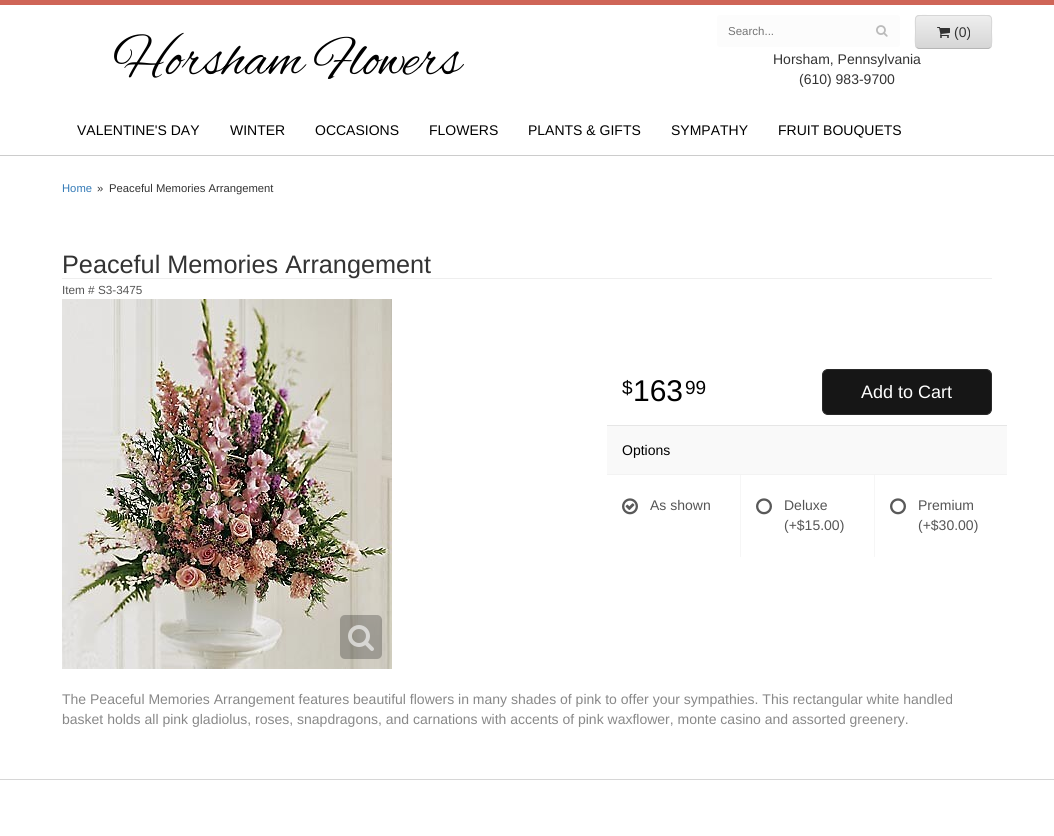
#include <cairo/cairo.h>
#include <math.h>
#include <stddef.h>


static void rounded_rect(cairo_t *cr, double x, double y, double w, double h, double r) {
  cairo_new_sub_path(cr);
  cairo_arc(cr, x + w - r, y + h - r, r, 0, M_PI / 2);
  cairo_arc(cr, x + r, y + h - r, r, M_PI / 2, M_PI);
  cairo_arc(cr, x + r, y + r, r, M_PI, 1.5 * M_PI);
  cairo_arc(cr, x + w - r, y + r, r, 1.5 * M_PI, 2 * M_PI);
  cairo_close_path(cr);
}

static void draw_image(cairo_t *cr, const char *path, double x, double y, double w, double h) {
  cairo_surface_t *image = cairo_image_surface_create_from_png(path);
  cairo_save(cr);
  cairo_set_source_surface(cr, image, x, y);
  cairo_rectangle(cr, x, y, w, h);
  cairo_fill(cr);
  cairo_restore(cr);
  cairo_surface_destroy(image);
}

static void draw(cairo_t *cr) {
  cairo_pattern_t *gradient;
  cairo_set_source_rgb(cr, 207 / 255.0, 101 / 255.0, 87 / 255.0);
  cairo_paint(cr);
  cairo_set_source_rgb(cr, 1, 1, 1);
  cairo_rectangle(cr, 0, 5, 1054, 831);
  cairo_fill(cr);
  cairo_set_source_rgb(cr, 252 / 255.0, 252 / 255.0, 252 / 255.0);
  rounded_rect(cr, 717, 15, 183, 32, 3);
  cairo_fill(cr);
  draw_image(cr, "images/1.png", 876, 25, 12, 12);
  cairo_save(cr);
  rounded_rect(cr, 915, 15, 77, 34, 4);
  cairo_clip(cr);
  gradient = cairo_pattern_create_linear(954, -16, 954, 16);
  cairo_pattern_add_color_stop_rgba(gradient, 0, 238 / 255.0, 238 / 255.0, 238 / 255.0, 1);
  cairo_pattern_add_color_stop_rgba(gradient, 1, 214 / 255.0, 214 / 255.0, 214 / 255.0, 1);
  cairo_set_source(cr, gradient);
  cairo_pattern_destroy(gradient);
  cairo_rectangle(cr, 915, 15, 77, 1);
  cairo_fill(cr);
  gradient = cairo_pattern_create_linear(954, 16, 954, 48);
  cairo_pattern_add_color_stop_rgba(gradient, 0, 238 / 255.0, 238 / 255.0, 238 / 255.0, 1);
  cairo_pattern_add_color_stop_rgba(gradient, 1, 214 / 255.0, 214 / 255.0, 214 / 255.0, 1);
  cairo_set_source(cr, gradient);
  cairo_pattern_destroy(gradient);
  cairo_rectangle(cr, 915, 16, 77, 32);
  cairo_fill(cr);
  cairo_restore(cr);
  cairo_new_path(cr);
  cairo_move_to(cr, 990.5, 47.5);
  cairo_line_to(cr, 988.5, 48.5);
  cairo_line_to(cr, 918.5, 48.5);
  cairo_line_to(cr, 916.5, 47.5);
  cairo_set_source_rgb(cr, 182 / 255.0, 182 / 255.0, 182 / 255.0);
  cairo_set_line_width(cr, 1);
  cairo_stroke(cr);
  cairo_new_path(cr);
  cairo_move_to(cr, 916.5, 47.5);
  cairo_curve_to(cr, 914.5, 45, 915.5, 35, 915.5, 32);
  cairo_curve_to(cr, 915.5, 13.5, 912.5, 15.5, 930.5, 15.5);
  cairo_line_to(cr, 976.5, 15.5);
  cairo_curve_to(cr, 994.5, 15.5, 991.5, 13.5, 991.5, 32);
  cairo_curve_to(cr, 991.5, 35, 992.5, 45, 990.5, 47.5);
  cairo_set_source_rgb(cr, 214 / 255.0, 214 / 255.0, 214 / 255.0);
  cairo_stroke(cr);
  draw_image(cr, "images/2.png", 937, 27, 13, 11);
  cairo_set_source_rgb(cr, 204 / 255.0, 204 / 255.0, 204 / 255.0);
  cairo_rectangle(cr, 0, 155, 1054, 1);
  cairo_fill(cr);
  cairo_set_source_rgb(cr, 238 / 255.0, 238 / 255.0, 238 / 255.0);
  cairo_rectangle(cr, 62, 278, 930, 1);
  cairo_fill(cr);
  draw_image(cr, "images/3.png", 62, 299, 330, 370);
  cairo_set_source_rgba(cr, 0, 0, 0, 0.24);
  rounded_rect(cr, 340, 615, 42, 44, 5);
  cairo_fill(cr);
  draw_image(cr, "images/4.png", 348, 625, 26, 26);
  cairo_set_source_rgb(cr, 22 / 255.0, 22 / 255.0, 22 / 255.0);
  rounded_rect(cr, 822.5, 369.5, 169, 45, 5.5);
  cairo_fill_preserve(cr);
  cairo_set_source_rgb(cr, 41 / 255.0, 41 / 255.0, 41 / 255.0);
  cairo_stroke(cr);
  cairo_set_source_rgb(cr, 249 / 255.0, 249 / 255.0, 249 / 255.0);
  cairo_rectangle(cr, 607, 426, 400, 48);
  cairo_fill(cr);
  cairo_set_source_rgb(cr, 230 / 255.0, 230 / 255.0, 230 / 255.0);
  cairo_rectangle(cr, 607, 425, 400, 1);
  cairo_fill(cr);
  cairo_set_source_rgb(cr, 243 / 255.0, 243 / 255.0, 243 / 255.0);
  cairo_rectangle(cr, 607, 474, 400, 1);
  cairo_fill(cr);
  draw_image(cr, "images/5.png", 622, 498, 16, 17);
  cairo_set_source_rgb(cr, 246 / 255.0, 246 / 255.0, 246 / 255.0);
  cairo_rectangle(cr, 740, 475, 1, 82);
  cairo_fill(cr);
  draw_image(cr, "images/6.png", 756, 498, 16, 17);
  cairo_rectangle(cr, 874, 475, 1, 82);
  cairo_fill(cr);
  draw_image(cr, "images/6.png", 890, 498, 16, 17);
  cairo_set_source_rgb(cr, 214 / 255.0, 214 / 255.0, 214 / 255.0);
  cairo_rectangle(cr, 0, 779, 1054, 1);
  cairo_fill(cr);
  cairo_select_font_face(cr, "Alex Brush", CAIRO_FONT_SLANT_NORMAL, CAIRO_FONT_WEIGHT_NORMAL);
  cairo_set_font_size(cr, 56);
  cairo_set_source_rgb(cr, 0, 0, 0);
  cairo_move_to(cr, 113, 74);
  cairo_show_text(cr, "Horsham Flowers");
  cairo_select_font_face(cr, "Liberation Sans", CAIRO_FONT_SLANT_NORMAL, CAIRO_FONT_WEIGHT_NORMAL);
  cairo_set_font_size(cr, 11.5);
  cairo_set_source_rgb(cr, 117 / 255.0, 117 / 255.0, 117 / 255.0);
  cairo_move_to(cr, 728, 35);
  cairo_show_text(cr, "Search...");
  cairo_set_font_size(cr, 14);
  cairo_set_source_rgb(cr, 51 / 255.0, 51 / 255.0, 51 / 255.0);
  cairo_move_to(cr, 954, 37);
  cairo_show_text(cr, "(0)");
  cairo_move_to(cr, 773, 64);
  cairo_show_text(cr, "Horsham, Pennsylvania");
  cairo_move_to(cr, 799, 84);
  cairo_show_text(cr, "(610) 983-9700");
  cairo_set_source_rgb(cr, 0, 0, 0);
  cairo_move_to(cr, 77, 135);
  cairo_show_text(cr, "VALENTINE'S DAY");
  cairo_move_to(cr, 230, 135);
  cairo_show_text(cr, "WINTER");
  cairo_move_to(cr, 315, 135);
  cairo_show_text(cr, "OCCASIONS");
  cairo_move_to(cr, 429, 135);
  cairo_show_text(cr, "FLOWERS");
  cairo_move_to(cr, 528, 135);
  cairo_show_text(cr, "PLANTS & GIFTS");
  cairo_move_to(cr, 671, 135);
  cairo_show_text(cr, "SYMPATHY");
  cairo_move_to(cr, 778, 135);
  cairo_show_text(cr, "FRUIT BOUQUETS");
  cairo_set_font_size(cr, 11.25);
  cairo_set_source_rgb(cr, 51 / 255.0, 122 / 255.0, 183 / 255.0);
  cairo_move_to(cr, 62, 192);
  cairo_show_text(cr, "Home");
  cairo_set_source_rgb(cr, 51 / 255.0, 51 / 255.0, 51 / 255.0);
  cairo_move_to(cr, 97, 192);
  cairo_show_text(cr, "»");
  cairo_move_to(cr, 109, 192);
  cairo_show_text(cr, "Peaceful Memories Arrangement");
  cairo_set_font_size(cr, 25.25);
  cairo_move_to(cr, 62, 273);
  cairo_show_text(cr, "Peaceful Memories Arrangement");
  cairo_set_font_size(cr, 11.75);
  cairo_set_source_rgb(cr, 85 / 255.0, 85 / 255.0, 85 / 255.0);
  cairo_move_to(cr, 62, 294);
  cairo_show_text(cr, "Item # S3-3475");
  cairo_set_font_size(cr, 19);
  cairo_set_source_rgb(cr, 0, 0, 0);
  cairo_move_to(cr, 622, 394);
  cairo_show_text(cr, "$");
  cairo_set_font_size(cr, 30);
  cairo_move_to(cr, 633, 401);
  cairo_show_text(cr, "163");
  cairo_set_font_size(cr, 19);
  cairo_move_to(cr, 685, 394);
  cairo_show_text(cr, "99");
  cairo_set_font_size(cr, 18);
  cairo_set_source_rgb(cr, 1, 1, 1);
  cairo_move_to(cr, 861, 398);
  cairo_show_text(cr, "Add to Cart");
  cairo_set_font_size(cr, 14);
  cairo_set_source_rgb(cr, 0, 0, 0);
  cairo_move_to(cr, 622, 455);
  cairo_show_text(cr, "Options");
  cairo_set_source_rgb(cr, 85 / 255.0, 85 / 255.0, 85 / 255.0);
  cairo_move_to(cr, 650, 510);
  cairo_show_text(cr, "As shown");
  cairo_move_to(cr, 784, 510);
  cairo_show_text(cr, "Deluxe");
  cairo_move_to(cr, 784, 530);
  cairo_show_text(cr, "(+$15.00)");
  cairo_move_to(cr, 918, 510);
  cairo_show_text(cr, "Premium");
  cairo_move_to(cr, 918, 530);
  cairo_show_text(cr, "(+$30.00)");
  cairo_set_source_rgb(cr, 136 / 255.0, 136 / 255.0, 136 / 255.0);
  cairo_move_to(cr, 62, 704);
  cairo_show_text(cr, "The Peaceful Memories Arrangement features beautiful flowers in many shades of pink to offer your sympathies. This rectangular white handled");
  cairo_move_to(cr, 62, 724);
  cairo_show_text(cr, "basket holds all pink gladiolus, roses, snapdragons, and carnations with accents of pink waxflower, monte casino and assorted greenery.");
}

int main(void) {
  cairo_surface_t *surface = cairo_image_surface_create(CAIRO_FORMAT_RGB24, 1054, 836);
  cairo_t *cr = cairo_create(surface);
  cairo_font_options_t *options = cairo_font_options_create();
  cairo_font_options_set_hint_metrics(options, CAIRO_HINT_METRICS_OFF);
  cairo_font_options_set_hint_style(options, CAIRO_HINT_STYLE_NONE);
  cairo_set_font_options(cr, options);
  cairo_set_miter_limit(cr, 4);
  draw(cr);
  cairo_surface_write_to_png(surface, "out.png");
  cairo_font_options_destroy(options);
  cairo_destroy(cr);
  cairo_surface_destroy(surface);
  return 0;
}
